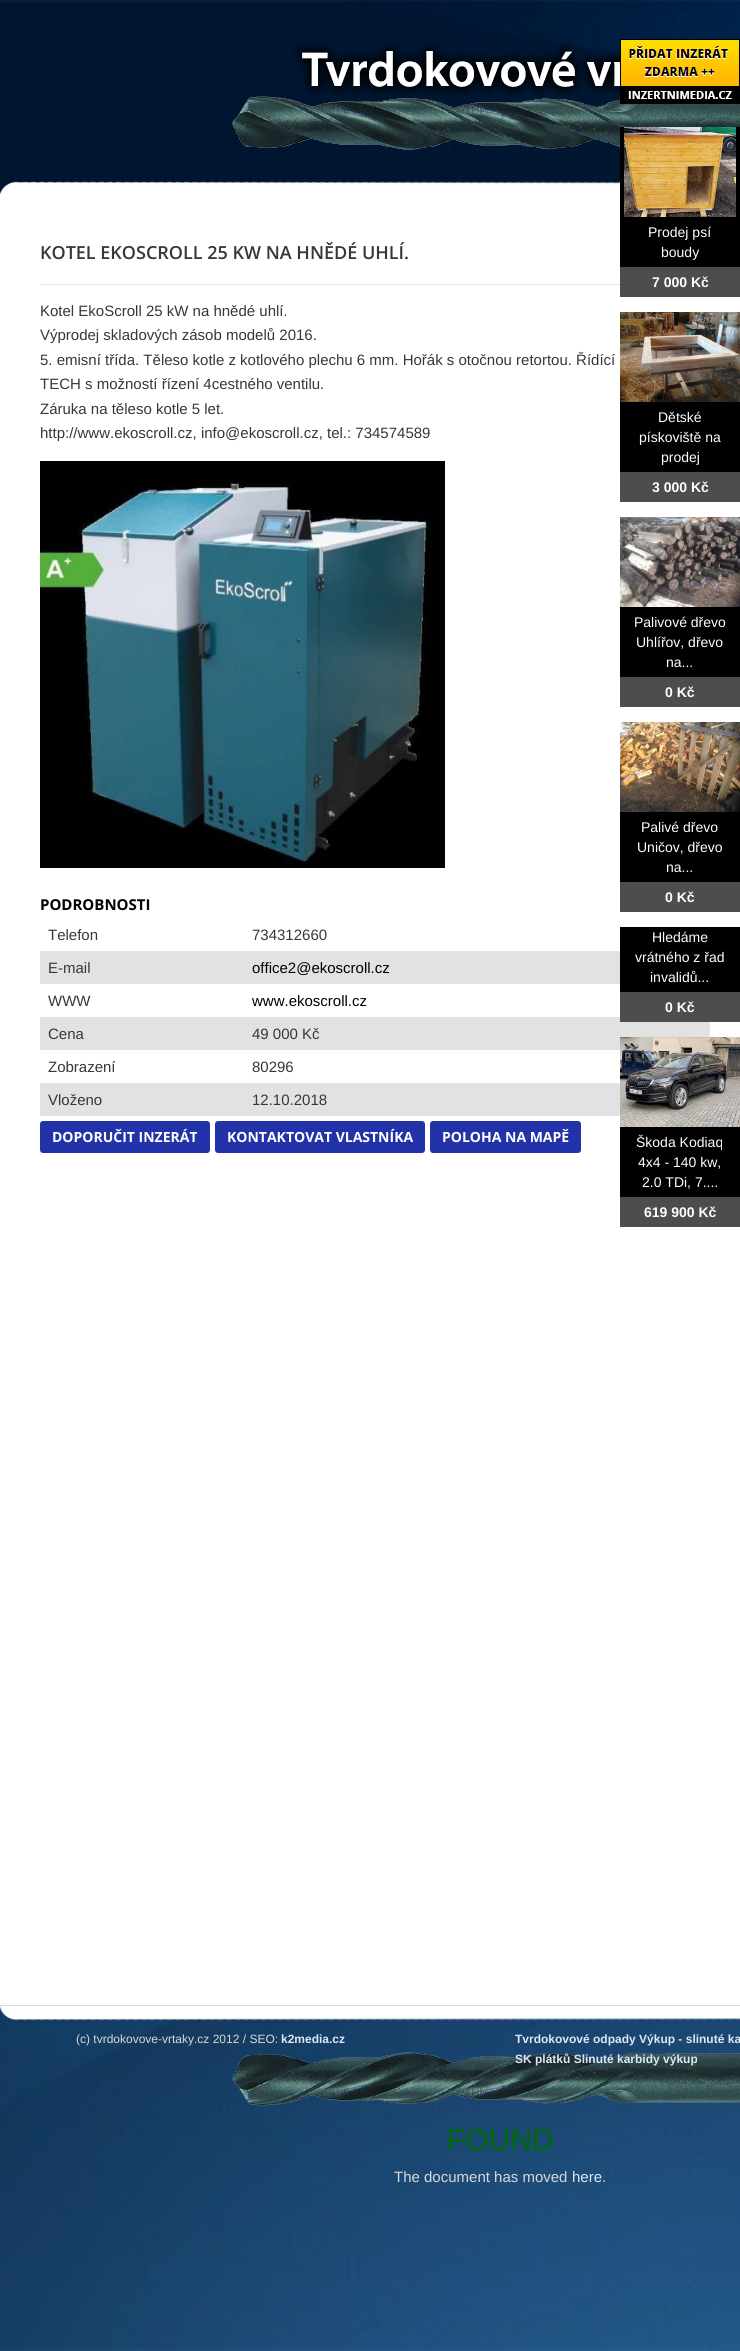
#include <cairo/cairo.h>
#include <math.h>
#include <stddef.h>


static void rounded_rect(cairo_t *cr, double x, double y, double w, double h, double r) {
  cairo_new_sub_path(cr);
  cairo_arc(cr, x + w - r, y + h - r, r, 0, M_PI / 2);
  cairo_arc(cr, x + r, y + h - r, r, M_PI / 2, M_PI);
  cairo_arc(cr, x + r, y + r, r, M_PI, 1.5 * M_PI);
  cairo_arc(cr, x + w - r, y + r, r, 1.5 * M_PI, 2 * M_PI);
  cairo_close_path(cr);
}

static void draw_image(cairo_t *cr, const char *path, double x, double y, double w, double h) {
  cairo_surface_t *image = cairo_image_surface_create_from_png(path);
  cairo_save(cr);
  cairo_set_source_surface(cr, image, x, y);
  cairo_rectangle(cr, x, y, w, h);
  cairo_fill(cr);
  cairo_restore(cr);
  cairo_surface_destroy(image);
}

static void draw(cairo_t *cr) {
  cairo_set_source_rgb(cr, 1, 1, 1);
  cairo_paint(cr);
  draw_image(cr, "images/1.png", 0, 0, 740, 2351);
  draw_image(cr, "images/8.png", 0, 43, 620, 157);
  draw_image(cr, "images/9.png", 0, 43, 740, 153);
  draw_image(cr, "images/2.png", 620, 39, 120, 65);
  cairo_set_source_rgb(cr, 1, 1, 1);
  cairo_rectangle(cr, 0, 200, 740, 1805);
  cairo_fill(cr);
  cairo_set_source_rgb(cr, 0, 0, 0);
  cairo_rectangle(cr, 620, 127, 120, 140);
  cairo_fill(cr);
  draw_image(cr, "images/3.png", 620, 127, 119, 90);
  cairo_set_source_rgb(cr, 77 / 255.0, 77 / 255.0, 77 / 255.0);
  cairo_rectangle(cr, 620, 267, 120, 30);
  cairo_fill(cr);
  cairo_set_source_rgb(cr, 0, 0, 0);
  cairo_rectangle(cr, 620, 402, 120, 70);
  cairo_fill(cr);
  draw_image(cr, "images/4.png", 620, 312, 120, 90);
  cairo_set_source_rgb(cr, 77 / 255.0, 77 / 255.0, 77 / 255.0);
  cairo_rectangle(cr, 620, 472, 120, 30);
  cairo_fill(cr);
  cairo_set_source_rgb(cr, 0, 0, 0);
  cairo_rectangle(cr, 620, 607, 120, 70);
  cairo_fill(cr);
  draw_image(cr, "images/5.png", 620, 517, 120, 90);
  cairo_set_source_rgb(cr, 77 / 255.0, 77 / 255.0, 77 / 255.0);
  cairo_rectangle(cr, 620, 677, 120, 30);
  cairo_fill(cr);
  cairo_set_source_rgb(cr, 0, 0, 0);
  cairo_rectangle(cr, 620, 812, 120, 70);
  cairo_fill(cr);
  draw_image(cr, "images/6.png", 620, 722, 120, 90);
  cairo_set_source_rgb(cr, 77 / 255.0, 77 / 255.0, 77 / 255.0);
  cairo_rectangle(cr, 620, 882, 120, 30);
  cairo_fill(cr);
  cairo_set_source_rgb(cr, 0, 0, 0);
  cairo_rectangle(cr, 620, 927, 120, 65);
  cairo_fill(cr);
  cairo_set_source_rgb(cr, 226 / 255.0, 226 / 255.0, 227 / 255.0);
  cairo_rectangle(cr, 40, 1017, 670, 33);
  cairo_fill(cr);
  cairo_set_source_rgb(cr, 77 / 255.0, 77 / 255.0, 77 / 255.0);
  cairo_rectangle(cr, 620, 992, 120, 30);
  cairo_fill(cr);
  cairo_set_source_rgb(cr, 0, 0, 0);
  cairo_rectangle(cr, 620, 1127, 120, 70);
  cairo_fill(cr);
  draw_image(cr, "images/7.png", 620, 1037, 120, 90);
  cairo_set_source_rgb(cr, 77 / 255.0, 77 / 255.0, 77 / 255.0);
  cairo_rectangle(cr, 620, 1197, 120, 30);
  cairo_fill(cr);
  cairo_set_source_rgb(cr, 230 / 255.0, 230 / 255.0, 230 / 255.0);
  cairo_rectangle(cr, 40, 284, 580, 1);
  cairo_fill(cr);
  draw_image(cr, "images/10.png", 40, 461, 405, 407);
  cairo_set_source_rgb(cr, 226 / 255.0, 226 / 255.0, 227 / 255.0);
  cairo_rectangle(cr, 40, 951, 580, 33);
  cairo_fill(cr);
  cairo_rectangle(cr, 40, 1083, 580, 33);
  cairo_fill(cr);
  cairo_set_source_rgb(cr, 34 / 255.0, 51 / 255.0, 170 / 255.0);
  rounded_rect(cr, 40, 1121, 170, 32, 3);
  cairo_fill(cr);
  rounded_rect(cr, 215, 1121, 210, 32, 3);
  cairo_fill(cr);
  rounded_rect(cr, 430, 1121, 151, 32, 3);
  cairo_fill(cr);
  draw_image(cr, "images/11.png", 0, 2006, 740, 100);
  cairo_set_source_rgb(cr, 221 / 255.0, 221 / 255.0, 221 / 255.0);
  cairo_rectangle(cr, 0, 2005, 740, 1);
  cairo_fill(cr);
  cairo_select_font_face(cr, "Liberation Sans", CAIRO_FONT_SLANT_NORMAL, CAIRO_FONT_WEIGHT_NORMAL);
  cairo_set_font_size(cr, 14);
  cairo_set_source_rgb(cr, 1, 1, 1);
  cairo_move_to(cr, 648, 237);
  cairo_show_text(cr, "Prodej psí");
  cairo_move_to(cr, 661, 257);
  cairo_show_text(cr, "boudy");
  cairo_select_font_face(cr, "Liberation Sans", CAIRO_FONT_SLANT_NORMAL, CAIRO_FONT_WEIGHT_BOLD);
  cairo_move_to(cr, 652, 287);
  cairo_show_text(cr, "7 000 Kč");
  cairo_select_font_face(cr, "Liberation Sans", CAIRO_FONT_SLANT_NORMAL, CAIRO_FONT_WEIGHT_NORMAL);
  cairo_move_to(cr, 658, 422);
  cairo_show_text(cr, "Dětské");
  cairo_move_to(cr, 639, 442);
  cairo_show_text(cr, "pískoviště na");
  cairo_move_to(cr, 661, 462);
  cairo_show_text(cr, "prodej");
  cairo_select_font_face(cr, "Liberation Sans", CAIRO_FONT_SLANT_NORMAL, CAIRO_FONT_WEIGHT_BOLD);
  cairo_move_to(cr, 652, 492);
  cairo_show_text(cr, "3 000 Kč");
  cairo_select_font_face(cr, "Liberation Sans", CAIRO_FONT_SLANT_NORMAL, CAIRO_FONT_WEIGHT_NORMAL);
  cairo_move_to(cr, 634, 627);
  cairo_show_text(cr, "Palivové dřevo");
  cairo_move_to(cr, 636, 647);
  cairo_show_text(cr, "Uhlířov, dřevo");
  cairo_move_to(cr, 666, 667);
  cairo_show_text(cr, "na...");
  cairo_select_font_face(cr, "Liberation Sans", CAIRO_FONT_SLANT_NORMAL, CAIRO_FONT_WEIGHT_BOLD);
  cairo_move_to(cr, 665, 697);
  cairo_show_text(cr, "0 Kč");
  cairo_select_font_face(cr, "Liberation Sans", CAIRO_FONT_SLANT_NORMAL, CAIRO_FONT_WEIGHT_NORMAL);
  cairo_move_to(cr, 641, 832);
  cairo_show_text(cr, "Palivé dřevo");
  cairo_move_to(cr, 637, 852);
  cairo_show_text(cr, "Uničov, dřevo");
  cairo_move_to(cr, 666, 872);
  cairo_show_text(cr, "na...");
  cairo_select_font_face(cr, "Liberation Sans", CAIRO_FONT_SLANT_NORMAL, CAIRO_FONT_WEIGHT_BOLD);
  cairo_move_to(cr, 665, 902);
  cairo_show_text(cr, "0 Kč");
  cairo_select_font_face(cr, "Liberation Sans", CAIRO_FONT_SLANT_NORMAL, CAIRO_FONT_WEIGHT_NORMAL);
  cairo_move_to(cr, 652, 942);
  cairo_show_text(cr, "Hledáme");
  cairo_move_to(cr, 635, 962);
  cairo_show_text(cr, "vrátného z řad");
  cairo_move_to(cr, 650, 982);
  cairo_show_text(cr, "invalidů...");
  cairo_select_font_face(cr, "Liberation Sans", CAIRO_FONT_SLANT_NORMAL, CAIRO_FONT_WEIGHT_BOLD);
  cairo_move_to(cr, 665, 1012);
  cairo_show_text(cr, "0 Kč");
  cairo_select_font_face(cr, "Liberation Sans", CAIRO_FONT_SLANT_NORMAL, CAIRO_FONT_WEIGHT_NORMAL);
  cairo_move_to(cr, 636, 1147);
  cairo_show_text(cr, "Škoda Kodiaq");
  cairo_move_to(cr, 638, 1167);
  cairo_show_text(cr, "4x4 - 140 kw,");
  cairo_move_to(cr, 642, 1187);
  cairo_show_text(cr, "2.0 TDi, 7....");
  cairo_select_font_face(cr, "Liberation Sans", CAIRO_FONT_SLANT_NORMAL, CAIRO_FONT_WEIGHT_BOLD);
  cairo_move_to(cr, 644, 1217);
  cairo_show_text(cr, "619 900 Kč");
  cairo_select_font_face(cr, "Open Sans SemiBold", CAIRO_FONT_SLANT_NORMAL, CAIRO_FONT_WEIGHT_NORMAL);
  cairo_set_font_size(cr, 18);
  cairo_set_source_rgb(cr, 55 / 255.0, 55 / 255.0, 55 / 255.0);
  cairo_move_to(cr, 40, 259);
  cairo_show_text(cr, "KOTEL EKOSCROLL 25 KW NA HNĚDÉ UHLÍ.");
  cairo_select_font_face(cr, "Liberation Sans", CAIRO_FONT_SLANT_NORMAL, CAIRO_FONT_WEIGHT_NORMAL);
  cairo_set_font_size(cr, 15);
  cairo_move_to(cr, 40, 316);
  cairo_show_text(cr, "Kotel EkoScroll 25 kW na hnědé uhlí.");
  cairo_move_to(cr, 40, 340);
  cairo_show_text(cr, "Výprodej skladových zásob modelů 2016.");
  cairo_move_to(cr, 40, 365);
  cairo_show_text(cr, "5. emisní třída. Těleso kotle z kotlového plechu 6 mm. Hořák s otočnou retortou. Řídící");
  cairo_move_to(cr, 40, 389);
  cairo_show_text(cr, "TECH s možností řízení 4cestného ventilu.");
  cairo_move_to(cr, 40, 414);
  cairo_show_text(cr, "Záruka na těleso kotle 5 let.");
  cairo_move_to(cr, 40, 438);
  cairo_show_text(cr, "http://www.ekoscroll.cz, info@ekoscroll.cz, tel.: 734574589");
  cairo_select_font_face(cr, "Open Sans", CAIRO_FONT_SLANT_NORMAL, CAIRO_FONT_WEIGHT_BOLD);
  cairo_set_source_rgb(cr, 0, 0, 0);
  cairo_move_to(cr, 40, 910);
  cairo_show_text(cr, "PODROBNOSTI");
  cairo_select_font_face(cr, "Liberation Sans", CAIRO_FONT_SLANT_NORMAL, CAIRO_FONT_WEIGHT_NORMAL);
  cairo_set_source_rgb(cr, 55 / 255.0, 55 / 255.0, 55 / 255.0);
  cairo_move_to(cr, 48, 940);
  cairo_show_text(cr, "Telefon");
  cairo_move_to(cr, 252, 940);
  cairo_show_text(cr, "734312660");
  cairo_move_to(cr, 48, 973);
  cairo_show_text(cr, "E-mail");
  cairo_set_source_rgb(cr, 0, 0, 0);
  cairo_move_to(cr, 252, 973);
  cairo_show_text(cr, "office2@ekoscroll.cz");
  cairo_set_source_rgb(cr, 55 / 255.0, 55 / 255.0, 55 / 255.0);
  cairo_move_to(cr, 48, 1006);
  cairo_show_text(cr, "WWW");
  cairo_set_source_rgb(cr, 0, 0, 0);
  cairo_move_to(cr, 252, 1006);
  cairo_show_text(cr, "www.ekoscroll.cz");
  cairo_set_source_rgb(cr, 55 / 255.0, 55 / 255.0, 55 / 255.0);
  cairo_move_to(cr, 48, 1039);
  cairo_show_text(cr, "Cena");
  cairo_move_to(cr, 252, 1039);
  cairo_show_text(cr, "49 000 Kč");
  cairo_move_to(cr, 48, 1072);
  cairo_show_text(cr, "Zobrazení");
  cairo_move_to(cr, 252, 1072);
  cairo_show_text(cr, "80296");
  cairo_move_to(cr, 48, 1105);
  cairo_show_text(cr, "Vloženo");
  cairo_move_to(cr, 252, 1105);
  cairo_show_text(cr, "12.10.2018");
  cairo_select_font_face(cr, "Open Sans", CAIRO_FONT_SLANT_NORMAL, CAIRO_FONT_WEIGHT_BOLD);
  cairo_set_font_size(cr, 14);
  cairo_set_source_rgb(cr, 1, 1, 1);
  cairo_move_to(cr, 52, 1142);
  cairo_show_text(cr, "DOPORUČIT INZERÁT");
  cairo_move_to(cr, 227, 1142);
  cairo_show_text(cr, "KONTAKTOVAT VLASTNÍKA");
  cairo_move_to(cr, 442, 1142);
  cairo_show_text(cr, "POLOHA NA MAPĚ");
  cairo_select_font_face(cr, "Liberation Sans", CAIRO_FONT_SLANT_NORMAL, CAIRO_FONT_WEIGHT_NORMAL);
  cairo_set_font_size(cr, 12);
  cairo_set_source_rgb(cr, 216 / 255.0, 216 / 255.0, 216 / 255.0);
  cairo_move_to(cr, 76, 2043);
  cairo_show_text(cr, "(c) tvrdokovove-vrtaky.cz 2012 / SEO:");
  cairo_select_font_face(cr, "Liberation Sans", CAIRO_FONT_SLANT_NORMAL, CAIRO_FONT_WEIGHT_BOLD);
  cairo_set_source_rgb(cr, 219 / 255.0, 231 / 255.0, 243 / 255.0);
  cairo_move_to(cr, 281, 2043);
  cairo_show_text(cr, "k2media.cz");
  cairo_move_to(cr, 515, 2043);
  cairo_show_text(cr, "Tvrdokovové odpady Výkup - slinuté ka");
  cairo_move_to(cr, 515, 2063);
  cairo_show_text(cr, "SK plátků Slinuté karbidy výkup");
  cairo_select_font_face(cr, "Liberation Sans", CAIRO_FONT_SLANT_NORMAL, CAIRO_FONT_WEIGHT_NORMAL);
  cairo_set_font_size(cr, 30);
  cairo_set_source_rgb(cr, 0, 106 / 255.0, 1 / 255.0);
  cairo_move_to(cr, 447, 2150);
  cairo_show_text(cr, "FOUND");
  cairo_set_font_size(cr, 15);
  cairo_set_source_rgb(cr, 216 / 255.0, 216 / 255.0, 216 / 255.0);
  cairo_move_to(cr, 394, 2182);
  cairo_show_text(cr, "The document has moved");
  cairo_set_source_rgb(cr, 219 / 255.0, 231 / 255.0, 243 / 255.0);
  cairo_move_to(cr, 572, 2182);
  cairo_show_text(cr, "here");
  cairo_set_source_rgb(cr, 216 / 255.0, 216 / 255.0, 216 / 255.0);
  cairo_move_to(cr, 602, 2182);
  cairo_show_text(cr, ".");
}

int main(void) {
  cairo_surface_t *surface = cairo_image_surface_create(CAIRO_FORMAT_RGB24, 740, 2351);
  cairo_t *cr = cairo_create(surface);
  cairo_font_options_t *options = cairo_font_options_create();
  cairo_font_options_set_hint_metrics(options, CAIRO_HINT_METRICS_OFF);
  cairo_font_options_set_hint_style(options, CAIRO_HINT_STYLE_NONE);
  cairo_set_font_options(cr, options);
  cairo_set_miter_limit(cr, 4);
  draw(cr);
  cairo_surface_write_to_png(surface, "out.png");
  cairo_font_options_destroy(options);
  cairo_destroy(cr);
  cairo_surface_destroy(surface);
  return 0;
}
